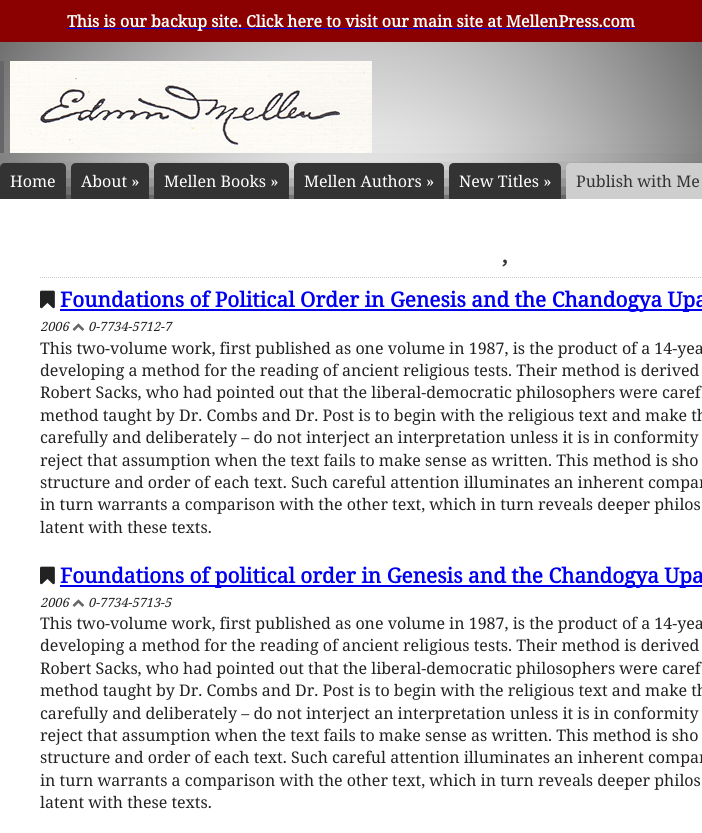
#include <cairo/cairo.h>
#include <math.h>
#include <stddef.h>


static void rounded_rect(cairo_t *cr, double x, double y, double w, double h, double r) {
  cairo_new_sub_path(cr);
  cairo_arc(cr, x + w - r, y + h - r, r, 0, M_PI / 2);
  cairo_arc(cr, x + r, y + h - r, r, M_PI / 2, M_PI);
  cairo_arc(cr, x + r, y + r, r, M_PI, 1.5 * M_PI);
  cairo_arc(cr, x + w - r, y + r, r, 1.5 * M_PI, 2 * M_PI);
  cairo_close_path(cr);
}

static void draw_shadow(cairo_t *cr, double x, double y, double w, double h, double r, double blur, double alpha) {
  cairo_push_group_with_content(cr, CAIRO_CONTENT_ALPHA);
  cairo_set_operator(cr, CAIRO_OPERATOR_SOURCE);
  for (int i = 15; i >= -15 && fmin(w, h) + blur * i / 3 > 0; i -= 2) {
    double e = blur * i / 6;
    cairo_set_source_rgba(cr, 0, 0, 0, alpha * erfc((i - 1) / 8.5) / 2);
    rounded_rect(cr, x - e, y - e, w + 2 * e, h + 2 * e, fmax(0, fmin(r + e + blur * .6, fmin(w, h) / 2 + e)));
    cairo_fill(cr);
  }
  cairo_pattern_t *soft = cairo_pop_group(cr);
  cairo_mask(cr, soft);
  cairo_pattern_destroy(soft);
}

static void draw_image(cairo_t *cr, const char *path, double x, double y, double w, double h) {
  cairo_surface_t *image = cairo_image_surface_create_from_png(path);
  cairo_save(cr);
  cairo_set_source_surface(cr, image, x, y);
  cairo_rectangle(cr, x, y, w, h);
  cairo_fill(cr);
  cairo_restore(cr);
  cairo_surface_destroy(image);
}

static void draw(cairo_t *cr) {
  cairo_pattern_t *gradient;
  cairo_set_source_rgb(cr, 1, 1, 1);
  cairo_paint(cr);
  gradient = cairo_pattern_create_radial(0, 0, 0, 0, 0, 1);
  cairo_pattern_set_matrix(gradient, &(cairo_matrix_t){1.0 / 496, 0, 0, 1.0 / 853, -1.0 * 351 / 496, -1.0 * 604 / 853});
  cairo_pattern_add_color_stop_rgba(gradient, 0, 228 / 255.0, 245 / 255.0, 252 / 255.0, 1);
  cairo_pattern_add_color_stop_rgba(gradient, 0.52, 237 / 255.0, 237 / 255.0, 237 / 255.0, 1);
  cairo_pattern_add_color_stop_rgba(gradient, 1, 102 / 255.0, 102 / 255.0, 102 / 255.0, 1);
  cairo_set_source(cr, gradient);
  cairo_pattern_destroy(gradient);
  cairo_rectangle(cr, 0, 42, 702, 157);
  cairo_fill(cr);
  cairo_set_source_rgb(cr, 139 / 255.0, 0, 0);
  cairo_rectangle(cr, 0, 0, 702, 42);
  cairo_fill(cr);
  cairo_set_source_rgb(cr, 0, 0, 238 / 255.0);
  cairo_rectangle(cr, 67, 28, 568, 1);
  cairo_fill(cr);
  cairo_set_source_rgb(cr, 0, 0, 0);
  draw_shadow(cr, 0, 199, 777, 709, 0, 25, 1);
  draw_image(cr, "images/1.png", 0, 61, 372, 92);
  cairo_set_source_rgb(cr, 51 / 255.0, 51 / 255.0, 51 / 255.0);
  cairo_new_path(cr);
  cairo_move_to(cr, 5, 163);
  cairo_line_to(cr, 61, 163);
  cairo_curve_to(cr, 64, 163, 66, 165, 66, 168);
  cairo_line_to(cr, 66, 199);
  cairo_line_to(cr, 0, 199);
  cairo_line_to(cr, 0, 168);
  cairo_curve_to(cr, 0, 165, 2, 163, 5, 163);
  cairo_close_path(cr);
  cairo_fill(cr);
  cairo_new_path(cr);
  cairo_move_to(cr, 76, 163);
  cairo_line_to(cr, 144, 163);
  cairo_curve_to(cr, 147, 163, 149, 165, 149, 168);
  cairo_line_to(cr, 149, 199);
  cairo_line_to(cr, 71, 199);
  cairo_line_to(cr, 71, 168);
  cairo_curve_to(cr, 71, 165, 73, 163, 76, 163);
  cairo_close_path(cr);
  cairo_fill(cr);
  cairo_new_path(cr);
  cairo_move_to(cr, 159, 163);
  cairo_line_to(cr, 284, 163);
  cairo_curve_to(cr, 287, 163, 289, 165, 289, 168);
  cairo_line_to(cr, 289, 199);
  cairo_line_to(cr, 154, 199);
  cairo_line_to(cr, 154, 168);
  cairo_curve_to(cr, 154, 165, 156, 163, 159, 163);
  cairo_close_path(cr);
  cairo_fill(cr);
  cairo_new_path(cr);
  cairo_move_to(cr, 299, 163);
  cairo_line_to(cr, 439, 163);
  cairo_curve_to(cr, 442, 163, 444, 165, 444, 168);
  cairo_line_to(cr, 444, 199);
  cairo_line_to(cr, 294, 199);
  cairo_line_to(cr, 294, 168);
  cairo_curve_to(cr, 294, 165, 296, 163, 299, 163);
  cairo_close_path(cr);
  cairo_fill(cr);
  cairo_new_path(cr);
  cairo_move_to(cr, 454, 163);
  cairo_line_to(cr, 556, 163);
  cairo_curve_to(cr, 559, 163, 561, 165, 561, 168);
  cairo_line_to(cr, 561, 199);
  cairo_line_to(cr, 449, 199);
  cairo_line_to(cr, 449, 168);
  cairo_curve_to(cr, 449, 165, 451, 163, 454, 163);
  cairo_close_path(cr);
  cairo_fill(cr);
  cairo_set_source_rgb(cr, 206 / 255.0, 206 / 255.0, 206 / 255.0);
  cairo_new_path(cr);
  cairo_move_to(cr, 571, 163);
  cairo_line_to(cr, 702, 163);
  cairo_curve_to(cr, 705, 163, 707, 165, 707, 168);
  cairo_line_to(cr, 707, 199);
  cairo_line_to(cr, 566, 199);
  cairo_line_to(cr, 566, 168);
  cairo_curve_to(cr, 566, 165, 568, 163, 571, 163);
  cairo_close_path(cr);
  cairo_fill(cr);
  cairo_set_source_rgb(cr, 1, 1, 1);
  cairo_rectangle(cr, 0, 199, 702, 634);
  cairo_fill(cr);
  cairo_new_path(cr);
  cairo_move_to(cr, 40, 277.5);
  cairo_line_to(cr, 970, 277.5);
  cairo_set_source_rgb(cr, 204 / 255.0, 204 / 255.0, 204 / 255.0);
  cairo_set_line_width(cr, 1);
  cairo_set_dash(cr, (double[]){1, 1}, 2, 0);
  cairo_stroke(cr);
  draw_image(cr, "images/2.png", 40, 290, 15, 19);
  cairo_set_source_rgb(cr, 0, 0, 238 / 255.0);
  cairo_rectangle(cr, 60, 309, 642, 2);
  cairo_fill(cr);
  draw_image(cr, "images/3.png", 72, 323, 13, 8);
  draw_image(cr, "images/2.png", 40, 566, 15, 19);
  cairo_rectangle(cr, 60, 585, 642, 2);
  cairo_fill(cr);
  draw_image(cr, "images/3.png", 72, 599, 13, 8);
  cairo_select_font_face(cr, "Noto Serif", CAIRO_FONT_SLANT_NORMAL, CAIRO_FONT_WEIGHT_BOLD);
  cairo_set_font_size(cr, 16);
  cairo_set_source_rgb(cr, 1, 1, 1);
  cairo_move_to(cr, 67, 27);
  cairo_show_text(cr, "This is our backup site. Click here to visit our main site at MellenPress.com");
  cairo_select_font_face(cr, "Noto Serif", CAIRO_FONT_SLANT_NORMAL, CAIRO_FONT_WEIGHT_NORMAL);
  cairo_move_to(cr, 10, 187);
  cairo_show_text(cr, "Home");
  cairo_move_to(cr, 81, 187);
  cairo_show_text(cr, "About »");
  cairo_move_to(cr, 164, 187);
  cairo_show_text(cr, "Mellen Books »");
  cairo_move_to(cr, 304, 187);
  cairo_show_text(cr, "Mellen Authors »");
  cairo_move_to(cr, 459, 187);
  cairo_show_text(cr, "New Titles »");
  cairo_set_source_rgb(cr, 51 / 255.0, 51 / 255.0, 51 / 255.0);
  cairo_move_to(cr, 576, 187);
  cairo_show_text(cr, "Publish with Me");
  cairo_select_font_face(cr, "Noto Serif", CAIRO_FONT_SLANT_NORMAL, CAIRO_FONT_WEIGHT_BOLD);
  cairo_set_font_size(cr, 22);
  cairo_move_to(cr, 502, 263);
  cairo_show_text(cr, ",");
  cairo_set_font_size(cr, 20.8);
  cairo_set_source_rgb(cr, 0, 0, 238 / 255.0);
  cairo_move_to(cr, 60, 307);
  cairo_show_text(cr, "Foundations of Political Order in Genesis and the Chandogya Upa");
  cairo_select_font_face(cr, "Noto Serif", CAIRO_FONT_SLANT_ITALIC, CAIRO_FONT_WEIGHT_NORMAL);
  cairo_set_font_size(cr, 12.75);
  cairo_set_source_rgb(cr, 34 / 255.0, 34 / 255.0, 34 / 255.0);
  cairo_move_to(cr, 40, 331);
  cairo_show_text(cr, "2006");
  cairo_move_to(cr, 88, 331);
  cairo_show_text(cr, "0-7734-5712-7");
  cairo_select_font_face(cr, "Noto Serif", CAIRO_FONT_SLANT_NORMAL, CAIRO_FONT_WEIGHT_NORMAL);
  cairo_set_font_size(cr, 16);
  cairo_move_to(cr, 40, 354);
  cairo_show_text(cr, "This two-volume work, first published as one volume in 1987, is the product of a 14-yea");
  cairo_move_to(cr, 40, 376);
  cairo_show_text(cr, "developing a method for the reading of ancient religious tests. Their method is derived");
  cairo_move_to(cr, 40, 398);
  cairo_show_text(cr, "Robert Sacks, who had pointed out that the liberal-democratic philosophers were caref");
  cairo_move_to(cr, 40, 421);
  cairo_show_text(cr, "method taught by Dr. Combs and Dr. Post is to begin with the religious text and make th");
  cairo_move_to(cr, 40, 443);
  cairo_show_text(cr, "carefully and deliberately – do not interject an interpretation unless it is in conformity");
  cairo_move_to(cr, 40, 466);
  cairo_show_text(cr, "reject that assumption when the text fails to make sense as written. This method is sho");
  cairo_move_to(cr, 40, 488);
  cairo_show_text(cr, "structure and order of each text. Such careful attention illuminates an inherent compar");
  cairo_move_to(cr, 40, 510);
  cairo_show_text(cr, "in turn warrants a comparison with the other text, which in turn reveals deeper philos");
  cairo_move_to(cr, 40, 533);
  cairo_show_text(cr, "latent with these texts.");
  cairo_select_font_face(cr, "Noto Serif", CAIRO_FONT_SLANT_NORMAL, CAIRO_FONT_WEIGHT_BOLD);
  cairo_set_font_size(cr, 20.8);
  cairo_set_source_rgb(cr, 0, 0, 238 / 255.0);
  cairo_move_to(cr, 60, 583);
  cairo_show_text(cr, "Foundations of political order in Genesis and the Chandogya Upa");
  cairo_select_font_face(cr, "Noto Serif", CAIRO_FONT_SLANT_ITALIC, CAIRO_FONT_WEIGHT_NORMAL);
  cairo_set_font_size(cr, 12.75);
  cairo_set_source_rgb(cr, 34 / 255.0, 34 / 255.0, 34 / 255.0);
  cairo_move_to(cr, 40, 607);
  cairo_show_text(cr, "2006");
  cairo_move_to(cr, 88, 607);
  cairo_show_text(cr, "0-7734-5713-5");
  cairo_select_font_face(cr, "Noto Serif", CAIRO_FONT_SLANT_NORMAL, CAIRO_FONT_WEIGHT_NORMAL);
  cairo_set_font_size(cr, 16);
  cairo_move_to(cr, 40, 629);
  cairo_show_text(cr, "This two-volume work, first published as one volume in 1987, is the product of a 14-yea");
  cairo_move_to(cr, 40, 651);
  cairo_show_text(cr, "developing a method for the reading of ancient religious tests. Their method is derived");
  cairo_move_to(cr, 40, 674);
  cairo_show_text(cr, "Robert Sacks, who had pointed out that the liberal-democratic philosophers were caref");
  cairo_move_to(cr, 40, 696);
  cairo_show_text(cr, "method taught by Dr. Combs and Dr. Post is to begin with the religious text and make th");
  cairo_move_to(cr, 40, 719);
  cairo_show_text(cr, "carefully and deliberately – do not interject an interpretation unless it is in conformity");
  cairo_move_to(cr, 40, 741);
  cairo_show_text(cr, "reject that assumption when the text fails to make sense as written. This method is sho");
  cairo_move_to(cr, 40, 763);
  cairo_show_text(cr, "structure and order of each text. Such careful attention illuminates an inherent compar");
  cairo_move_to(cr, 40, 786);
  cairo_show_text(cr, "in turn warrants a comparison with the other text, which in turn reveals deeper philos");
  cairo_move_to(cr, 40, 808);
  cairo_show_text(cr, "latent with these texts.");
}

int main(void) {
  cairo_surface_t *surface = cairo_image_surface_create(CAIRO_FORMAT_RGB24, 702, 833);
  cairo_t *cr = cairo_create(surface);
  cairo_font_options_t *options = cairo_font_options_create();
  cairo_font_options_set_hint_metrics(options, CAIRO_HINT_METRICS_OFF);
  cairo_font_options_set_hint_style(options, CAIRO_HINT_STYLE_NONE);
  cairo_set_font_options(cr, options);
  cairo_set_miter_limit(cr, 4);
  draw(cr);
  cairo_surface_write_to_png(surface, "out.png");
  cairo_font_options_destroy(options);
  cairo_destroy(cr);
  cairo_surface_destroy(surface);
  return 0;
}
